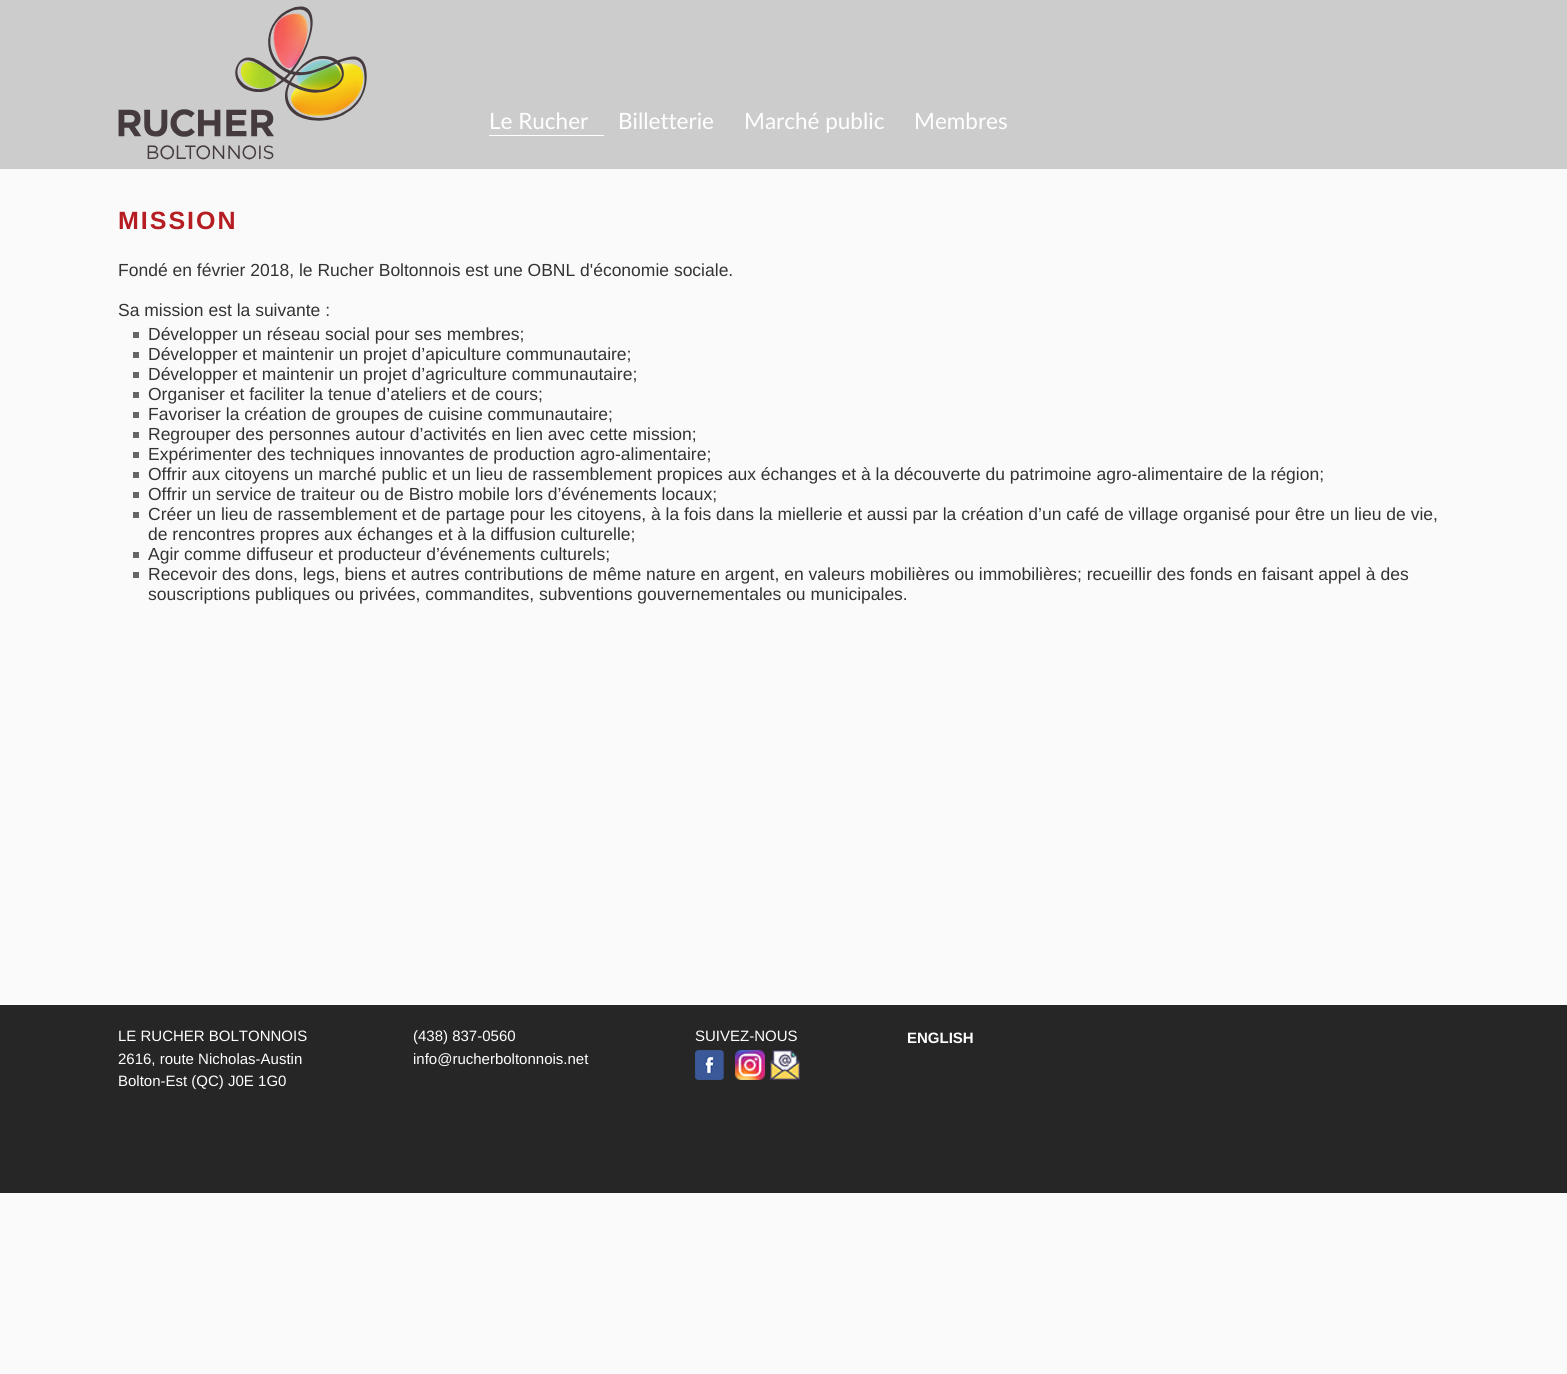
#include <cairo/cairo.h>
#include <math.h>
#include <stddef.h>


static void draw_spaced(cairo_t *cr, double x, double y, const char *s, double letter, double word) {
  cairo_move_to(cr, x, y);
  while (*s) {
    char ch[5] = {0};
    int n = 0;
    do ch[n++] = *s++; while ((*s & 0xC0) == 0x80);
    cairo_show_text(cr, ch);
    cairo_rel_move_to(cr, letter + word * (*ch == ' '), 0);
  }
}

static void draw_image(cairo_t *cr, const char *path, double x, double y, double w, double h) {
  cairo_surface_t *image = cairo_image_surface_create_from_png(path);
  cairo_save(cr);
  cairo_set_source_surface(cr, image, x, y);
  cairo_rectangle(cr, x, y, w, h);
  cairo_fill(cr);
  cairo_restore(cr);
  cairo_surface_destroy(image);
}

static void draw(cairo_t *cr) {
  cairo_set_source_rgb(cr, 250 / 255.0, 250 / 255.0, 250 / 255.0);
  cairo_paint(cr);
  cairo_set_source_rgb(cr, 204 / 255.0, 204 / 255.0, 204 / 255.0);
  cairo_rectangle(cr, 0, 0, 1567, 169);
  cairo_fill(cr);
  draw_image(cr, "images/1.png", 118, 6, 249, 154);
  cairo_set_source_rgb(cr, 1, 1, 1);
  cairo_rectangle(cr, 489, 135, 115, 1);
  cairo_fill(cr);
  cairo_set_source_rgb(cr, 100 / 255.0, 102 / 255.0, 104 / 255.0);
  cairo_rectangle(cr, 133, 332, 6, 6);
  cairo_fill(cr);
  cairo_rectangle(cr, 133, 352, 6, 6);
  cairo_fill(cr);
  cairo_rectangle(cr, 133, 372, 6, 6);
  cairo_fill(cr);
  cairo_rectangle(cr, 133, 392, 6, 6);
  cairo_fill(cr);
  cairo_rectangle(cr, 133, 412, 6, 6);
  cairo_fill(cr);
  cairo_rectangle(cr, 133, 432, 6, 6);
  cairo_fill(cr);
  cairo_rectangle(cr, 133, 452, 6, 6);
  cairo_fill(cr);
  cairo_rectangle(cr, 133, 472, 6, 6);
  cairo_fill(cr);
  cairo_rectangle(cr, 133, 492, 6, 6);
  cairo_fill(cr);
  cairo_rectangle(cr, 133, 512, 6, 6);
  cairo_fill(cr);
  cairo_rectangle(cr, 133, 552, 6, 6);
  cairo_fill(cr);
  cairo_rectangle(cr, 133, 572, 6, 6);
  cairo_fill(cr);
  cairo_set_source_rgb(cr, 38 / 255.0, 38 / 255.0, 38 / 255.0);
  cairo_rectangle(cr, 0, 1005, 1567, 188);
  cairo_fill(cr);
  draw_image(cr, "images/2.png", 695, 1050, 29, 30);
  draw_image(cr, "images/3.png", 735, 1050, 30, 30);
  draw_image(cr, "images/4.png", 770, 1050, 30, 30);
  cairo_select_font_face(cr, "Lato", CAIRO_FONT_SLANT_NORMAL, CAIRO_FONT_WEIGHT_NORMAL);
  cairo_set_font_size(cr, 22.5);
  cairo_set_source_rgb(cr, 1, 1, 1);
  cairo_move_to(cr, 489, 129);
  cairo_show_text(cr, "Le Rucher");
  cairo_move_to(cr, 618, 129);
  cairo_show_text(cr, "Billetterie");
  cairo_move_to(cr, 744, 129);
  cairo_show_text(cr, "Marché public");
  cairo_move_to(cr, 914, 129);
  cairo_show_text(cr, "Membres");
  cairo_select_font_face(cr, "Liberation Sans", CAIRO_FONT_SLANT_NORMAL, CAIRO_FONT_WEIGHT_BOLD);
  cairo_set_font_size(cr, 25);
  cairo_set_source_rgb(cr, 182 / 255.0, 29 / 255.0, 34 / 255.0);
  draw_spaced(cr, 118, 229, "MISSION", 2, 0);
  cairo_select_font_face(cr, "Liberation Sans", CAIRO_FONT_SLANT_NORMAL, CAIRO_FONT_WEIGHT_NORMAL);
  cairo_set_font_size(cr, 17.5);
  cairo_set_source_rgb(cr, 51 / 255.0, 51 / 255.0, 51 / 255.0);
  cairo_move_to(cr, 118, 276);
  cairo_show_text(cr, "Fondé en février 2018, le Rucher Boltonnois est une OBNL d'économie sociale.");
  cairo_move_to(cr, 118, 316);
  cairo_show_text(cr, "Sa mission est la suivante :");
  cairo_move_to(cr, 148, 340);
  cairo_show_text(cr, "Développer un réseau social pour ses membres;");
  cairo_move_to(cr, 148, 360);
  cairo_show_text(cr, "Développer et maintenir un projet d’apiculture communautaire;");
  cairo_move_to(cr, 148, 380);
  cairo_show_text(cr, "Développer et maintenir un projet d’agriculture communautaire;");
  cairo_move_to(cr, 148, 400);
  cairo_show_text(cr, "Organiser et faciliter la tenue d’ateliers et de cours;");
  cairo_move_to(cr, 148, 420);
  cairo_show_text(cr, "Favoriser la création de groupes de cuisine communautaire;");
  cairo_move_to(cr, 148, 440);
  cairo_show_text(cr, "Regrouper des personnes autour d’activités en lien avec cette mission;");
  cairo_move_to(cr, 148, 460);
  cairo_show_text(cr, "Expérimenter des techniques innovantes de production agro-alimentaire;");
  cairo_move_to(cr, 148, 480);
  cairo_show_text(cr, "Offrir aux citoyens un marché public et un lieu de rassemblement propices aux échanges et à la découverte du patrimoine agro-alimentaire de la région;");
  cairo_move_to(cr, 148, 500);
  cairo_show_text(cr, "Offrir un service de traiteur ou de Bistro mobile lors d’événements locaux;");
  cairo_move_to(cr, 148, 520);
  cairo_show_text(cr, "Créer un lieu de rassemblement et de partage pour les citoyens, à la fois dans la miellerie et aussi par la création d’un café de village organisé pour être un lieu de vie,");
  cairo_move_to(cr, 148, 540);
  cairo_show_text(cr, "de rencontres propres aux échanges et à la diffusion culturelle;");
  cairo_move_to(cr, 148, 560);
  cairo_show_text(cr, "Agir comme diffuseur et producteur d’événements culturels;");
  cairo_move_to(cr, 148, 580);
  cairo_show_text(cr, "Recevoir des dons, legs, biens et autres contributions de même nature en argent, en valeurs mobilières ou immobilières; recueillir des fonds en faisant appel à des");
  cairo_move_to(cr, 148, 600);
  cairo_show_text(cr, "souscriptions publiques ou privées, commandites, subventions gouvernementales ou municipales.");
  cairo_set_font_size(cr, 15);
  cairo_set_source_rgb(cr, 1, 1, 1);
  cairo_move_to(cr, 118, 1041);
  cairo_show_text(cr, "LE RUCHER BOLTONNOIS");
  cairo_move_to(cr, 118, 1064);
  cairo_show_text(cr, "2616, route Nicholas-Austin");
  cairo_move_to(cr, 118, 1086);
  cairo_show_text(cr, "Bolton-Est (QC) J0E 1G0");
  cairo_move_to(cr, 413, 1041);
  cairo_show_text(cr, "(438) 837-0560");
  cairo_move_to(cr, 413, 1064);
  cairo_show_text(cr, "info@rucherboltonnois.net");
  cairo_move_to(cr, 695, 1041);
  cairo_show_text(cr, "SUIVEZ-NOUS");
  cairo_select_font_face(cr, "Liberation Sans", CAIRO_FONT_SLANT_NORMAL, CAIRO_FONT_WEIGHT_BOLD);
  cairo_move_to(cr, 907, 1043);
  cairo_show_text(cr, "ENGLISH");
}

int main(void) {
  cairo_surface_t *surface = cairo_image_surface_create(CAIRO_FORMAT_RGB24, 1567, 1374);
  cairo_t *cr = cairo_create(surface);
  cairo_font_options_t *options = cairo_font_options_create();
  cairo_font_options_set_hint_metrics(options, CAIRO_HINT_METRICS_OFF);
  cairo_font_options_set_hint_style(options, CAIRO_HINT_STYLE_NONE);
  cairo_set_font_options(cr, options);
  cairo_set_miter_limit(cr, 4);
  draw(cr);
  cairo_surface_write_to_png(surface, "out.png");
  cairo_font_options_destroy(options);
  cairo_destroy(cr);
  cairo_surface_destroy(surface);
  return 0;
}
